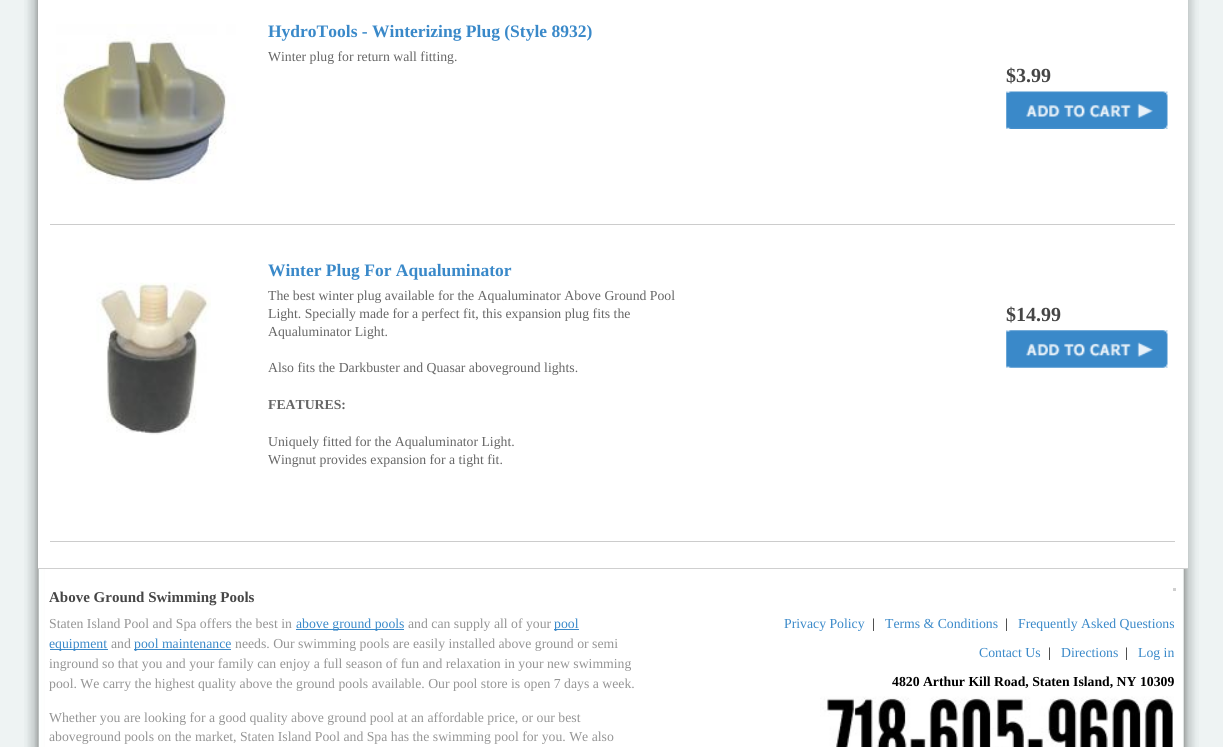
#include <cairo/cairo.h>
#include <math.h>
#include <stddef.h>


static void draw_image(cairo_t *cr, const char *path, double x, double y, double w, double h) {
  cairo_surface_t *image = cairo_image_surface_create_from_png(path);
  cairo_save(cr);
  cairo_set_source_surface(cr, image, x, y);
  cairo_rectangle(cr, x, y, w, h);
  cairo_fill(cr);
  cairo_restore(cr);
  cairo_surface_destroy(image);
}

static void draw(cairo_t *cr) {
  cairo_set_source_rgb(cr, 238 / 255.0, 243 / 255.0, 243 / 255.0);
  cairo_paint(cr);
  draw_image(cr, "images/1.png", 24, 0, 1175, 747);
  cairo_set_source_rgb(cr, 1, 1, 1);
  cairo_rectangle(cr, 38, 0, 1150, 568);
  cairo_fill(cr);
  cairo_set_source_rgb(cr, 207 / 255.0, 207 / 255.0, 207 / 255.0);
  cairo_rectangle(cr, 38, 568, 1150, 1);
  cairo_fill(cr);
  cairo_set_source_rgb(cr, 204 / 255.0, 204 / 255.0, 204 / 255.0);
  cairo_rectangle(cr, 50, 224, 1125, 1);
  cairo_fill(cr);
  draw_image(cr, "images/2.png", 56, 24, 180, 160);
  draw_image(cr, "images/3.png", 1006, 91, 162, 38);
  cairo_rectangle(cr, 50, 541, 1125, 1);
  cairo_fill(cr);
  draw_image(cr, "images/4.png", 96, 282, 115, 153);
  draw_image(cr, "images/5.png", 1006, 330, 162, 38);
  cairo_set_source_rgb(cr, 58 / 255.0, 137 / 255.0, 201 / 255.0);
  cairo_rectangle(cr, 296, 629, 108, 1);
  cairo_fill(cr);
  cairo_rectangle(cr, 554, 629, 25, 1);
  cairo_fill(cr);
  cairo_rectangle(cr, 50, 649, 58, 1);
  cairo_fill(cr);
  cairo_rectangle(cr, 134, 649, 97, 1);
  cairo_fill(cr);
  cairo_set_source_rgb(cr, 207 / 255.0, 207 / 255.0, 207 / 255.0);
  cairo_rectangle(cr, 1173, 588, 3, 3);
  cairo_fill(cr);
  draw_image(cr, "images/6.png", 820, 696, 354, 51);
  cairo_select_font_face(cr, "Liberation Serif", CAIRO_FONT_SLANT_NORMAL, CAIRO_FONT_WEIGHT_BOLD);
  cairo_set_font_size(cr, 17.5);
  cairo_set_source_rgb(cr, 58 / 255.0, 137 / 255.0, 201 / 255.0);
  cairo_move_to(cr, 268, 37);
  cairo_show_text(cr, "HydroTools - Winterizing Plug (Style 8932)");
  cairo_select_font_face(cr, "Liberation Serif", CAIRO_FONT_SLANT_NORMAL, CAIRO_FONT_WEIGHT_NORMAL);
  cairo_set_font_size(cr, 13.75);
  cairo_set_source_rgb(cr, 102 / 255.0, 102 / 255.0, 102 / 255.0);
  cairo_move_to(cr, 268, 61);
  cairo_show_text(cr, "Winter plug for return wall fitting.");
  cairo_select_font_face(cr, "Liberation Serif", CAIRO_FONT_SLANT_NORMAL, CAIRO_FONT_WEIGHT_BOLD);
  cairo_set_font_size(cr, 20);
  cairo_set_source_rgb(cr, 70 / 255.0, 70 / 255.0, 70 / 255.0);
  cairo_move_to(cr, 1006, 82);
  cairo_show_text(cr, "$3.99");
  cairo_set_font_size(cr, 17.5);
  cairo_set_source_rgb(cr, 58 / 255.0, 137 / 255.0, 201 / 255.0);
  cairo_move_to(cr, 268, 276);
  cairo_show_text(cr, "Winter Plug For Aqualuminator");
  cairo_select_font_face(cr, "Liberation Serif", CAIRO_FONT_SLANT_NORMAL, CAIRO_FONT_WEIGHT_NORMAL);
  cairo_set_font_size(cr, 13.75);
  cairo_set_source_rgb(cr, 102 / 255.0, 102 / 255.0, 102 / 255.0);
  cairo_move_to(cr, 268, 300);
  cairo_show_text(cr, "The best winter plug available for the Aqualuminator Above Ground Pool");
  cairo_move_to(cr, 268, 318);
  cairo_show_text(cr, "Light. Specially made for a perfect fit, this expansion plug fits the");
  cairo_move_to(cr, 268, 336);
  cairo_show_text(cr, "Aqualuminator Light.");
  cairo_move_to(cr, 268, 372);
  cairo_show_text(cr, "Also fits the Darkbuster and Quasar aboveground lights.");
  cairo_select_font_face(cr, "Liberation Serif", CAIRO_FONT_SLANT_NORMAL, CAIRO_FONT_WEIGHT_BOLD);
  cairo_move_to(cr, 268, 409);
  cairo_show_text(cr, "FEATURES:");
  cairo_select_font_face(cr, "Liberation Serif", CAIRO_FONT_SLANT_NORMAL, CAIRO_FONT_WEIGHT_NORMAL);
  cairo_move_to(cr, 268, 446);
  cairo_show_text(cr, "Uniquely fitted for the Aqualuminator Light.");
  cairo_move_to(cr, 268, 464);
  cairo_show_text(cr, "Wingnut provides expansion for a tight fit.");
  cairo_select_font_face(cr, "Liberation Serif", CAIRO_FONT_SLANT_NORMAL, CAIRO_FONT_WEIGHT_BOLD);
  cairo_set_font_size(cr, 20);
  cairo_set_source_rgb(cr, 70 / 255.0, 70 / 255.0, 70 / 255.0);
  cairo_move_to(cr, 1006, 321);
  cairo_show_text(cr, "$14.99");
  cairo_set_font_size(cr, 15);
  cairo_move_to(cr, 49, 602);
  cairo_show_text(cr, "Above Ground Swimming Pools");
  cairo_select_font_face(cr, "Liberation Serif", CAIRO_FONT_SLANT_NORMAL, CAIRO_FONT_WEIGHT_NORMAL);
  cairo_set_font_size(cr, 13.75);
  cairo_set_source_rgb(cr, 149 / 255.0, 149 / 255.0, 149 / 255.0);
  cairo_move_to(cr, 49, 628);
  cairo_show_text(cr, "Staten Island Pool and Spa offers the best in");
  cairo_set_source_rgb(cr, 58 / 255.0, 137 / 255.0, 201 / 255.0);
  cairo_move_to(cr, 296, 628);
  cairo_show_text(cr, "above ground pools");
  cairo_set_source_rgb(cr, 149 / 255.0, 149 / 255.0, 149 / 255.0);
  cairo_move_to(cr, 408, 628);
  cairo_show_text(cr, "and can supply all of your");
  cairo_set_source_rgb(cr, 58 / 255.0, 137 / 255.0, 201 / 255.0);
  cairo_move_to(cr, 554, 628);
  cairo_show_text(cr, "pool");
  cairo_move_to(cr, 49, 648);
  cairo_show_text(cr, "equipment");
  cairo_set_source_rgb(cr, 149 / 255.0, 149 / 255.0, 149 / 255.0);
  cairo_move_to(cr, 111, 648);
  cairo_show_text(cr, "and");
  cairo_set_source_rgb(cr, 58 / 255.0, 137 / 255.0, 201 / 255.0);
  cairo_move_to(cr, 134, 648);
  cairo_show_text(cr, "pool maintenance");
  cairo_set_source_rgb(cr, 149 / 255.0, 149 / 255.0, 149 / 255.0);
  cairo_move_to(cr, 235, 648);
  cairo_show_text(cr, "needs. Our swimming pools are easily installed above ground or semi");
  cairo_move_to(cr, 49, 668);
  cairo_show_text(cr, "inground so that you and your family can enjoy a full season of fun and relaxation in your new swimming");
  cairo_move_to(cr, 49, 688);
  cairo_show_text(cr, "pool. We carry the highest quality above the ground pools available. Our pool store is open 7 days a week.");
  cairo_move_to(cr, 49, 722);
  cairo_show_text(cr, "Whether you are looking for a good quality above ground pool at an affordable price, or our best");
  cairo_move_to(cr, 49, 741);
  cairo_show_text(cr, "aboveground pools on the market, Staten Island Pool and Spa has the swimming pool for you. We also");
  cairo_set_source_rgb(cr, 58 / 255.0, 137 / 255.0, 201 / 255.0);
  cairo_move_to(cr, 784, 628);
  cairo_show_text(cr, "Privacy Policy");
  cairo_set_source_rgb(cr, 0, 0, 0);
  cairo_move_to(cr, 872, 628);
  cairo_show_text(cr, "|");
  cairo_set_source_rgb(cr, 58 / 255.0, 137 / 255.0, 201 / 255.0);
  cairo_move_to(cr, 885, 628);
  cairo_show_text(cr, "Terms & Conditions");
  cairo_set_source_rgb(cr, 0, 0, 0);
  cairo_move_to(cr, 1005, 628);
  cairo_show_text(cr, "|");
  cairo_set_source_rgb(cr, 58 / 255.0, 137 / 255.0, 201 / 255.0);
  cairo_move_to(cr, 1018, 628);
  cairo_show_text(cr, "Frequently Asked Questions");
  cairo_move_to(cr, 979, 657);
  cairo_show_text(cr, "Contact Us");
  cairo_set_source_rgb(cr, 0, 0, 0);
  cairo_move_to(cr, 1048, 657);
  cairo_show_text(cr, "|");
  cairo_set_source_rgb(cr, 58 / 255.0, 137 / 255.0, 201 / 255.0);
  cairo_move_to(cr, 1061, 657);
  cairo_show_text(cr, "Directions");
  cairo_set_source_rgb(cr, 0, 0, 0);
  cairo_move_to(cr, 1125, 657);
  cairo_show_text(cr, "|");
  cairo_set_source_rgb(cr, 58 / 255.0, 137 / 255.0, 201 / 255.0);
  cairo_move_to(cr, 1138, 657);
  cairo_show_text(cr, "Log in");
  cairo_select_font_face(cr, "Liberation Serif", CAIRO_FONT_SLANT_NORMAL, CAIRO_FONT_WEIGHT_BOLD);
  cairo_set_source_rgb(cr, 0, 0, 0);
  cairo_move_to(cr, 892, 686);
  cairo_show_text(cr, "4820 Arthur Kill Road, Staten Island, NY 10309");
}

int main(void) {
  cairo_surface_t *surface = cairo_image_surface_create(CAIRO_FORMAT_RGB24, 1223, 747);
  cairo_t *cr = cairo_create(surface);
  cairo_font_options_t *options = cairo_font_options_create();
  cairo_font_options_set_hint_metrics(options, CAIRO_HINT_METRICS_OFF);
  cairo_font_options_set_hint_style(options, CAIRO_HINT_STYLE_NONE);
  cairo_set_font_options(cr, options);
  cairo_set_miter_limit(cr, 4);
  draw(cr);
  cairo_surface_write_to_png(surface, "out.png");
  cairo_font_options_destroy(options);
  cairo_destroy(cr);
  cairo_surface_destroy(surface);
  return 0;
}
